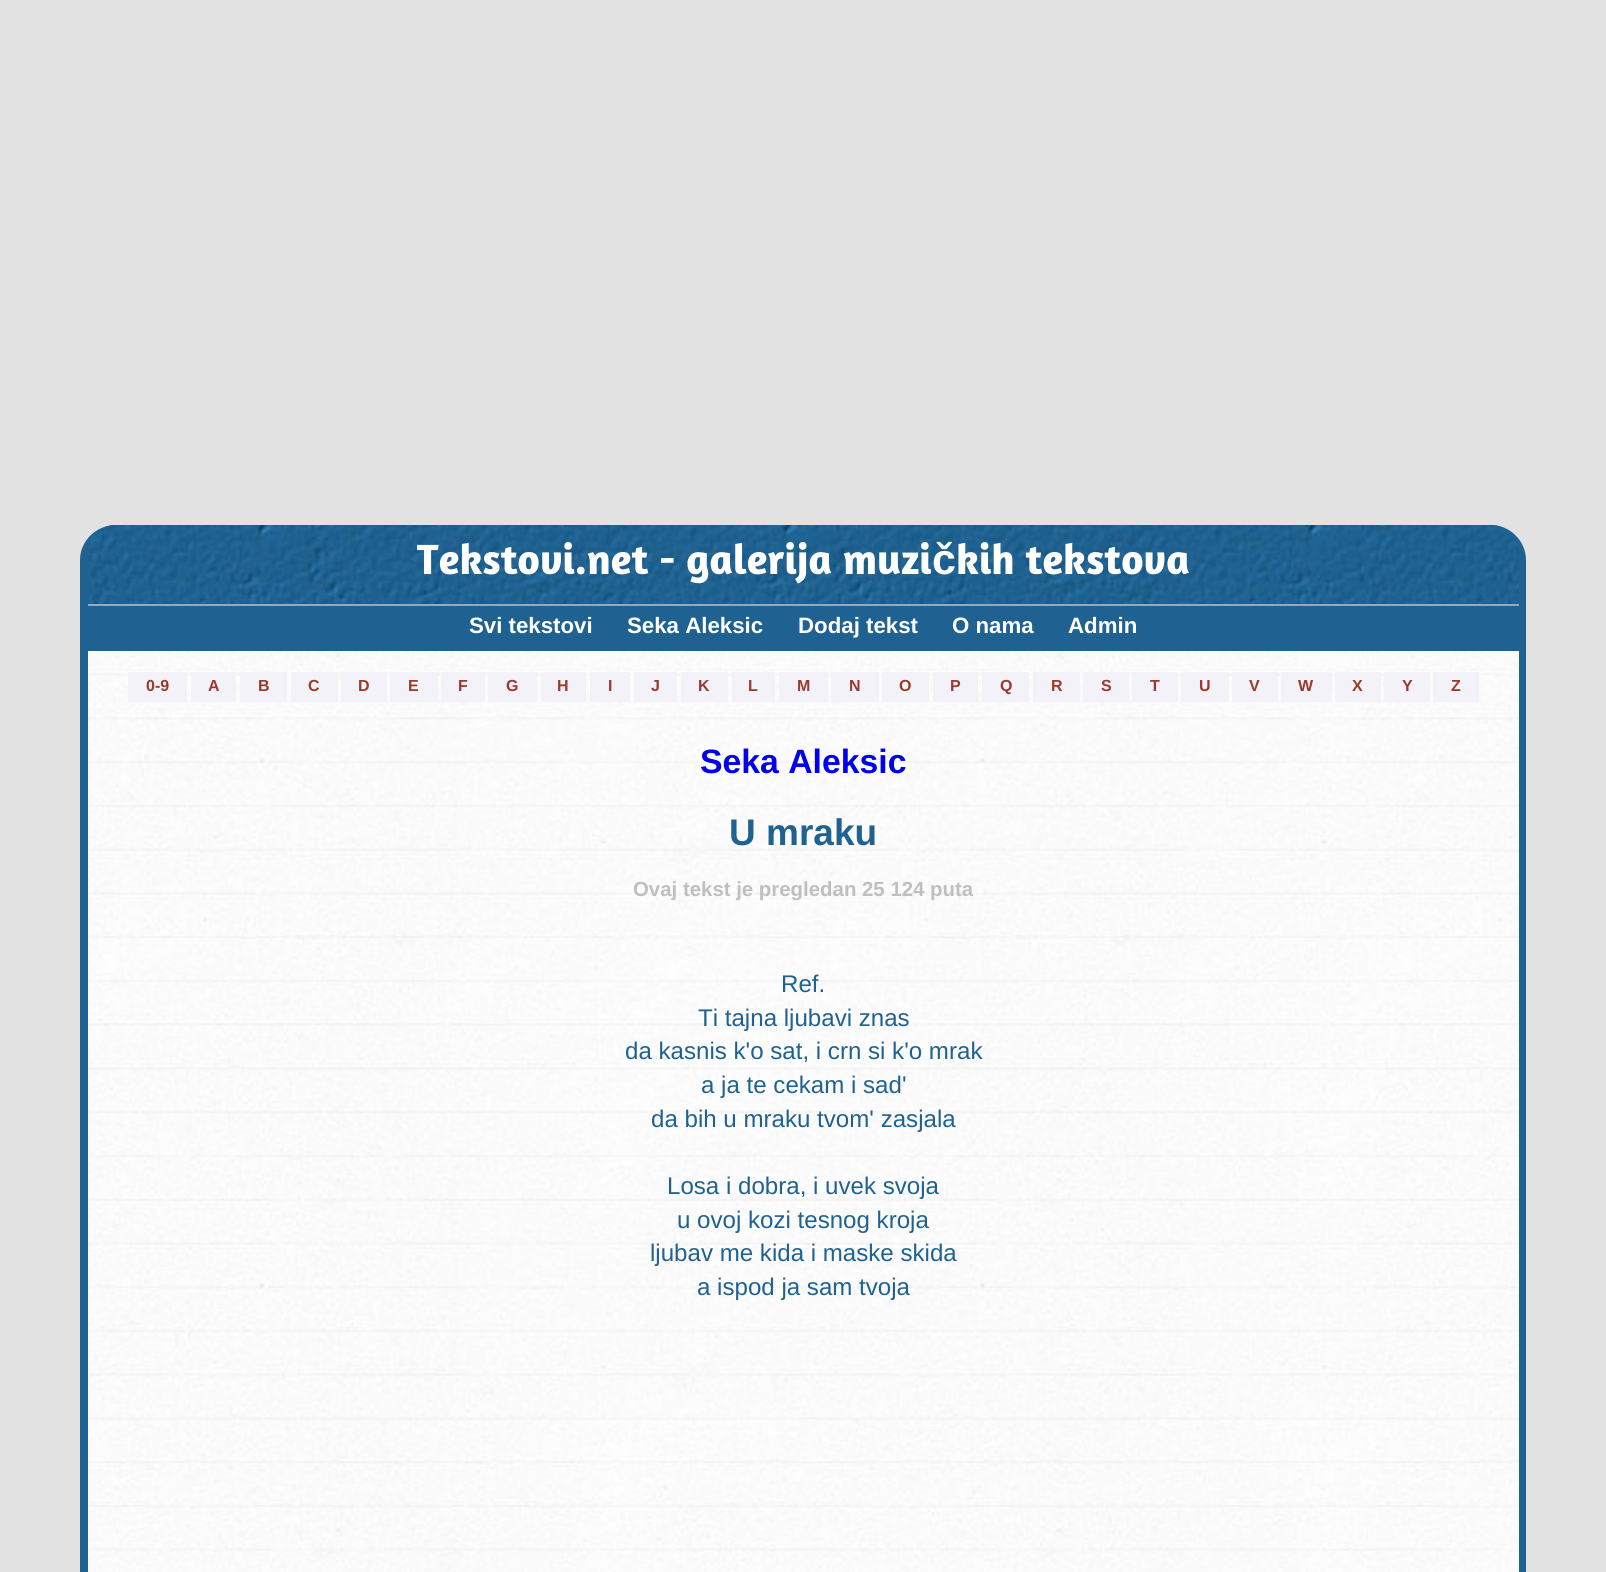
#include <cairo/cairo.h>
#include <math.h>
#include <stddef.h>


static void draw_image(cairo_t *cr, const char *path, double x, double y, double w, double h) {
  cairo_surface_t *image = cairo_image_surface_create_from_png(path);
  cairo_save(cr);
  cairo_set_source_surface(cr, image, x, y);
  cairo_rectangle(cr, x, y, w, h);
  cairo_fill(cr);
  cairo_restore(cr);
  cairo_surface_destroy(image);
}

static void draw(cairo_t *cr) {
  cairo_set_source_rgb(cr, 226 / 255.0, 226 / 255.0, 226 / 255.0);
  cairo_paint(cr);
  draw_image(cr, "images/1.png", 80, 525, 1446, 1047);
  cairo_set_source_rgb(cr, 31 / 255.0, 98 / 255.0, 145 / 255.0);
  cairo_set_fill_rule(cr, CAIRO_FILL_RULE_EVEN_ODD);
  cairo_new_path(cr);
  cairo_move_to(cr, 116, 525);
  cairo_line_to(cr, 1491, 525);
  cairo_curve_to(cr, 1510, 525, 1526, 541, 1526, 560);
  cairo_line_to(cr, 1526, 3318);
  cairo_curve_to(cr, 1526, 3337, 1510, 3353, 1491, 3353);
  cairo_line_to(cr, 116, 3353);
  cairo_curve_to(cr, 96, 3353, 80, 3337, 80, 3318);
  cairo_line_to(cr, 80, 560);
  cairo_curve_to(cr, 80, 541, 96, 525, 116, 525);
  cairo_close_path(cr);
  cairo_move_to(cr, 116, 525);
  cairo_line_to(cr, 1491, 525);
  cairo_curve_to(cr, 1506, 525, 1519, 541, 1519, 560);
  cairo_line_to(cr, 1519, 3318);
  cairo_curve_to(cr, 1519, 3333, 1506, 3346, 1491, 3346);
  cairo_line_to(cr, 116, 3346);
  cairo_curve_to(cr, 100, 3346, 88, 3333, 88, 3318);
  cairo_line_to(cr, 88, 560);
  cairo_curve_to(cr, 88, 541, 100, 525, 116, 525);
  cairo_close_path(cr);
  cairo_fill(cr);
  cairo_new_path(cr);
  cairo_move_to(cr, 116, 525);
  cairo_line_to(cr, 1491, 525);
  cairo_curve_to(cr, 1506.5, 525, 1519, 537.5, 1519, 553);
  cairo_line_to(cr, 1519, 606);
  cairo_line_to(cr, 88, 606);
  cairo_line_to(cr, 88, 553);
  cairo_curve_to(cr, 88, 537.5, 100.5, 525, 116, 525);
  cairo_close_path(cr);
  cairo_fill(cr);
  draw_image(cr, "images/2.png", 88, 525, 1431, 79);
  cairo_set_source_rgb(cr, 151 / 255.0, 168 / 255.0, 196 / 255.0);
  cairo_rectangle(cr, 88, 604, 1431, 2);
  cairo_fill(cr);
  cairo_set_source_rgb(cr, 31 / 255.0, 98 / 255.0, 145 / 255.0);
  cairo_rectangle(cr, 88, 606, 1431, 45);
  cairo_fill(cr);
  cairo_set_source_rgb(cr, 242 / 255.0, 242 / 255.0, 248 / 255.0);
  cairo_rectangle(cr, 128, 672, 59, 30);
  cairo_fill(cr);
  cairo_rectangle(cr, 191, 672, 45, 30);
  cairo_fill(cr);
  cairo_rectangle(cr, 240, 672, 47, 30);
  cairo_fill(cr);
  cairo_rectangle(cr, 291, 672, 47, 30);
  cairo_fill(cr);
  cairo_rectangle(cr, 341, 672, 46, 30);
  cairo_fill(cr);
  cairo_rectangle(cr, 390, 672, 48, 30);
  cairo_fill(cr);
  cairo_rectangle(cr, 441, 672, 44, 30);
  cairo_fill(cr);
  cairo_rectangle(cr, 488, 672, 49, 30);
  cairo_fill(cr);
  cairo_rectangle(cr, 541, 672, 45, 30);
  cairo_fill(cr);
  cairo_rectangle(cr, 590, 672, 40, 30);
  cairo_fill(cr);
  cairo_rectangle(cr, 634, 672, 43, 30);
  cairo_fill(cr);
  cairo_rectangle(cr, 681, 672, 47, 30);
  cairo_fill(cr);
  cairo_rectangle(cr, 732, 672, 43, 30);
  cairo_fill(cr);
  cairo_rectangle(cr, 779, 672, 49, 30);
  cairo_fill(cr);
  cairo_rectangle(cr, 831, 672, 48, 30);
  cairo_fill(cr);
  cairo_rectangle(cr, 882, 672, 47, 30);
  cairo_fill(cr);
  cairo_rectangle(cr, 933, 672, 45, 30);
  cairo_fill(cr);
  cairo_rectangle(cr, 982, 672, 47, 30);
  cairo_fill(cr);
  cairo_rectangle(cr, 1033, 672, 47, 30);
  cairo_fill(cr);
  cairo_rectangle(cr, 1083, 672, 46, 30);
  cairo_fill(cr);
  cairo_rectangle(cr, 1132, 672, 46, 30);
  cairo_fill(cr);
  cairo_rectangle(cr, 1181, 672, 48, 30);
  cairo_fill(cr);
  cairo_rectangle(cr, 1232, 672, 46, 30);
  cairo_fill(cr);
  cairo_rectangle(cr, 1281, 672, 51, 30);
  cairo_fill(cr);
  cairo_rectangle(cr, 1335, 672, 46, 30);
  cairo_fill(cr);
  cairo_rectangle(cr, 1384, 672, 46, 30);
  cairo_fill(cr);
  cairo_rectangle(cr, 1433, 672, 46, 30);
  cairo_fill(cr);
  cairo_select_font_face(cr, "Amaranth", CAIRO_FONT_SLANT_NORMAL, CAIRO_FONT_WEIGHT_BOLD);
  cairo_set_font_size(cr, 43);
  cairo_set_source_rgb(cr, 1, 1, 1);
  cairo_move_to(cr, 417, 574);
  cairo_show_text(cr, "Tekstovi.net - galerija muzi");
  cairo_select_font_face(cr, "Liberation Sans", CAIRO_FONT_SLANT_NORMAL, CAIRO_FONT_WEIGHT_BOLD);
  cairo_move_to(cr, 932, 574);
  cairo_show_text(cr, "č");
  cairo_select_font_face(cr, "Amaranth", CAIRO_FONT_SLANT_NORMAL, CAIRO_FONT_WEIGHT_BOLD);
  cairo_move_to(cr, 956, 574);
  cairo_show_text(cr, "kih tekstova");
  cairo_select_font_face(cr, "Liberation Sans", CAIRO_FONT_SLANT_NORMAL, CAIRO_FONT_WEIGHT_BOLD);
  cairo_set_font_size(cr, 22.25);
  cairo_move_to(cr, 469, 633);
  cairo_show_text(cr, "Svi tekstovi");
  cairo_move_to(cr, 627, 633);
  cairo_show_text(cr, "Seka Aleksic");
  cairo_move_to(cr, 798, 633);
  cairo_show_text(cr, "Dodaj tekst");
  cairo_move_to(cr, 952, 633);
  cairo_show_text(cr, "O nama");
  cairo_move_to(cr, 1068, 633);
  cairo_show_text(cr, "Admin");
  cairo_set_font_size(cr, 16);
  cairo_set_source_rgb(cr, 154 / 255.0, 58 / 255.0, 44 / 255.0);
  cairo_move_to(cr, 146, 691);
  cairo_show_text(cr, "0-9");
  cairo_move_to(cr, 208, 691);
  cairo_show_text(cr, "A");
  cairo_move_to(cr, 258, 691);
  cairo_show_text(cr, "B");
  cairo_move_to(cr, 308, 691);
  cairo_show_text(cr, "C");
  cairo_move_to(cr, 358, 691);
  cairo_show_text(cr, "D");
  cairo_move_to(cr, 408, 691);
  cairo_show_text(cr, "E");
  cairo_move_to(cr, 458, 691);
  cairo_show_text(cr, "F");
  cairo_move_to(cr, 506, 691);
  cairo_show_text(cr, "G");
  cairo_move_to(cr, 557, 691);
  cairo_show_text(cr, "H");
  cairo_move_to(cr, 608, 691);
  cairo_show_text(cr, "I");
  cairo_move_to(cr, 651, 691);
  cairo_show_text(cr, "J");
  cairo_move_to(cr, 698, 691);
  cairo_show_text(cr, "K");
  cairo_move_to(cr, 748, 691);
  cairo_show_text(cr, "L");
  cairo_move_to(cr, 797, 691);
  cairo_show_text(cr, "M");
  cairo_move_to(cr, 849, 691);
  cairo_show_text(cr, "N");
  cairo_move_to(cr, 899, 691);
  cairo_show_text(cr, "O");
  cairo_move_to(cr, 950, 691);
  cairo_show_text(cr, "P");
  cairo_move_to(cr, 1000, 691);
  cairo_show_text(cr, "Q");
  cairo_move_to(cr, 1051, 691);
  cairo_show_text(cr, "R");
  cairo_move_to(cr, 1101, 691);
  cairo_show_text(cr, "S");
  cairo_move_to(cr, 1150, 691);
  cairo_show_text(cr, "T");
  cairo_move_to(cr, 1199, 691);
  cairo_show_text(cr, "U");
  cairo_move_to(cr, 1249, 691);
  cairo_show_text(cr, "V");
  cairo_move_to(cr, 1298, 691);
  cairo_show_text(cr, "W");
  cairo_move_to(cr, 1352, 691);
  cairo_show_text(cr, "X");
  cairo_move_to(cr, 1402, 691);
  cairo_show_text(cr, "Y");
  cairo_move_to(cr, 1451, 691);
  cairo_show_text(cr, "Z");
  cairo_set_font_size(cr, 33.75);
  cairo_set_source_rgb(cr, 0, 0, 238 / 255.0);
  cairo_move_to(cr, 700, 773);
  cairo_show_text(cr, "Seka Aleksic");
  cairo_set_font_size(cr, 37);
  cairo_set_source_rgb(cr, 31 / 255.0, 98 / 255.0, 145 / 255.0);
  cairo_move_to(cr, 729, 845);
  cairo_show_text(cr, "U mraku");
  cairo_set_font_size(cr, 20.4);
  cairo_set_source_rgb(cr, 192 / 255.0, 191 / 255.0, 191 / 255.0);
  cairo_move_to(cr, 633, 896);
  cairo_show_text(cr, "Ovaj tekst je pregledan 25 124 puta");
  cairo_select_font_face(cr, "Liberation Sans", CAIRO_FONT_SLANT_NORMAL, CAIRO_FONT_WEIGHT_NORMAL);
  cairo_set_font_size(cr, 24.1);
  cairo_set_source_rgb(cr, 31 / 255.0, 98 / 255.0, 145 / 255.0);
  cairo_move_to(cr, 781, 992);
  cairo_show_text(cr, "Ref.");
  cairo_move_to(cr, 698, 1026);
  cairo_show_text(cr, "Ti tajna ljubavi znas");
  cairo_move_to(cr, 625, 1059);
  cairo_show_text(cr, "da kasnis k'o sat, i crn si k'o mrak");
  cairo_move_to(cr, 701, 1093);
  cairo_show_text(cr, "a ja te cekam i sad'");
  cairo_move_to(cr, 651, 1127);
  cairo_show_text(cr, "da bih u mraku tvom' zasjala");
  cairo_move_to(cr, 667, 1194);
  cairo_show_text(cr, "Losa i dobra, i uvek svoja");
  cairo_move_to(cr, 677, 1228);
  cairo_show_text(cr, "u ovoj kozi tesnog kroja");
  cairo_move_to(cr, 650, 1261);
  cairo_show_text(cr, "ljubav me kida i maske skida");
  cairo_move_to(cr, 697, 1295);
  cairo_show_text(cr, "a ispod ja sam tvoja");
}

int main(void) {
  cairo_surface_t *surface = cairo_image_surface_create(CAIRO_FORMAT_RGB24, 1606, 1572);
  cairo_t *cr = cairo_create(surface);
  cairo_font_options_t *options = cairo_font_options_create();
  cairo_font_options_set_hint_metrics(options, CAIRO_HINT_METRICS_OFF);
  cairo_font_options_set_hint_style(options, CAIRO_HINT_STYLE_NONE);
  cairo_set_font_options(cr, options);
  cairo_set_miter_limit(cr, 4);
  draw(cr);
  cairo_surface_write_to_png(surface, "out.png");
  cairo_font_options_destroy(options);
  cairo_destroy(cr);
  cairo_surface_destroy(surface);
  return 0;
}
